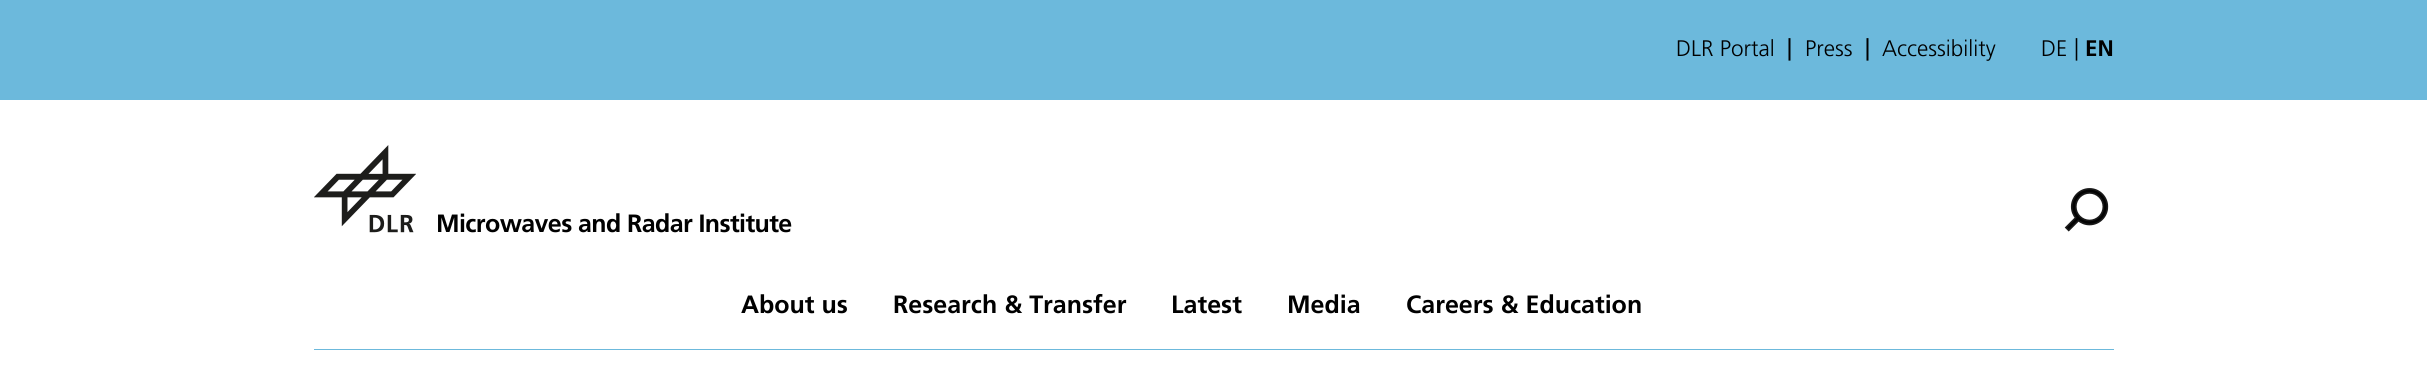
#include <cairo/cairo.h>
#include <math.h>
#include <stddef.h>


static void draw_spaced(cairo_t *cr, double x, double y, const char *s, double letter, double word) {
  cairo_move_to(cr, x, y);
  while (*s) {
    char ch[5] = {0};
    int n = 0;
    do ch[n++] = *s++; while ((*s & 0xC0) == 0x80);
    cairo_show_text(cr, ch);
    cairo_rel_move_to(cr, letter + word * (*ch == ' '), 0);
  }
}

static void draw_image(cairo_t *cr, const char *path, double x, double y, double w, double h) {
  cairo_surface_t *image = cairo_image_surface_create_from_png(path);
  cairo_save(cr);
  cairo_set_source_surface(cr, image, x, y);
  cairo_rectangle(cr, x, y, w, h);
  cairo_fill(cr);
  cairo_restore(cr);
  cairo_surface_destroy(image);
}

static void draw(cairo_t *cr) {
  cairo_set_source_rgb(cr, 1, 1, 1);
  cairo_paint(cr);
  cairo_set_source_rgb(cr, 108 / 255.0, 185 / 255.0, 220 / 255.0);
  cairo_rectangle(cr, 0, 0, 2427, 100);
  cairo_fill(cr);
  draw_image(cr, "images/1.png", 314, 145, 102, 88);
  draw_image(cr, "images/2.png", 2064, 188, 45, 44);
  cairo_rectangle(cr, 314, 349, 1800, 1);
  cairo_fill(cr);
  cairo_select_font_face(cr, "Frutiger Light", CAIRO_FONT_SLANT_NORMAL, CAIRO_FONT_WEIGHT_NORMAL);
  cairo_set_font_size(cr, 22.5);
  cairo_set_source_rgb(cr, 0, 0, 0);
  cairo_move_to(cr, 1676, 56);
  cairo_show_text(cr, "DLR Portal");
  cairo_select_font_face(cr, "Frutiger", CAIRO_FONT_SLANT_NORMAL, CAIRO_FONT_WEIGHT_NORMAL);
  cairo_move_to(cr, 1787, 55);
  cairo_show_text(cr, "|");
  cairo_select_font_face(cr, "Frutiger Light", CAIRO_FONT_SLANT_NORMAL, CAIRO_FONT_WEIGHT_NORMAL);
  cairo_move_to(cr, 1805, 56);
  cairo_show_text(cr, "Press");
  cairo_select_font_face(cr, "Frutiger", CAIRO_FONT_SLANT_NORMAL, CAIRO_FONT_WEIGHT_NORMAL);
  cairo_move_to(cr, 1865, 55);
  cairo_show_text(cr, "|");
  cairo_select_font_face(cr, "Frutiger Light", CAIRO_FONT_SLANT_NORMAL, CAIRO_FONT_WEIGHT_NORMAL);
  cairo_move_to(cr, 1882, 56);
  cairo_show_text(cr, "Accessibility");
  cairo_move_to(cr, 2041, 56);
  cairo_show_text(cr, "DE");
  cairo_move_to(cr, 2074, 55);
  cairo_show_text(cr, "|");
  cairo_select_font_face(cr, "Frutiger", CAIRO_FONT_SLANT_NORMAL, CAIRO_FONT_WEIGHT_BOLD);
  cairo_move_to(cr, 2085, 56);
  cairo_show_text(cr, "EN");
  cairo_set_font_size(cr, 25);
  draw_spaced(cr, 436, 232, "Microwaves and Radar Institute", -0.6, 0);
  cairo_move_to(cr, 741, 313);
  cairo_show_text(cr, "About us");
  cairo_move_to(cr, 893, 313);
  cairo_show_text(cr, "Research & Transfer");
  cairo_move_to(cr, 1171, 313);
  cairo_show_text(cr, "Latest");
  cairo_move_to(cr, 1287, 313);
  cairo_show_text(cr, "Media");
  cairo_move_to(cr, 1406, 313);
  cairo_show_text(cr, "Careers & Education");
}

int main(void) {
  cairo_surface_t *surface = cairo_image_surface_create(CAIRO_FORMAT_RGB24, 2427, 381);
  cairo_t *cr = cairo_create(surface);
  cairo_font_options_t *options = cairo_font_options_create();
  cairo_font_options_set_hint_metrics(options, CAIRO_HINT_METRICS_OFF);
  cairo_font_options_set_hint_style(options, CAIRO_HINT_STYLE_NONE);
  cairo_set_font_options(cr, options);
  cairo_set_miter_limit(cr, 4);
  draw(cr);
  cairo_surface_write_to_png(surface, "out.png");
  cairo_font_options_destroy(options);
  cairo_destroy(cr);
  cairo_surface_destroy(surface);
  return 0;
}
